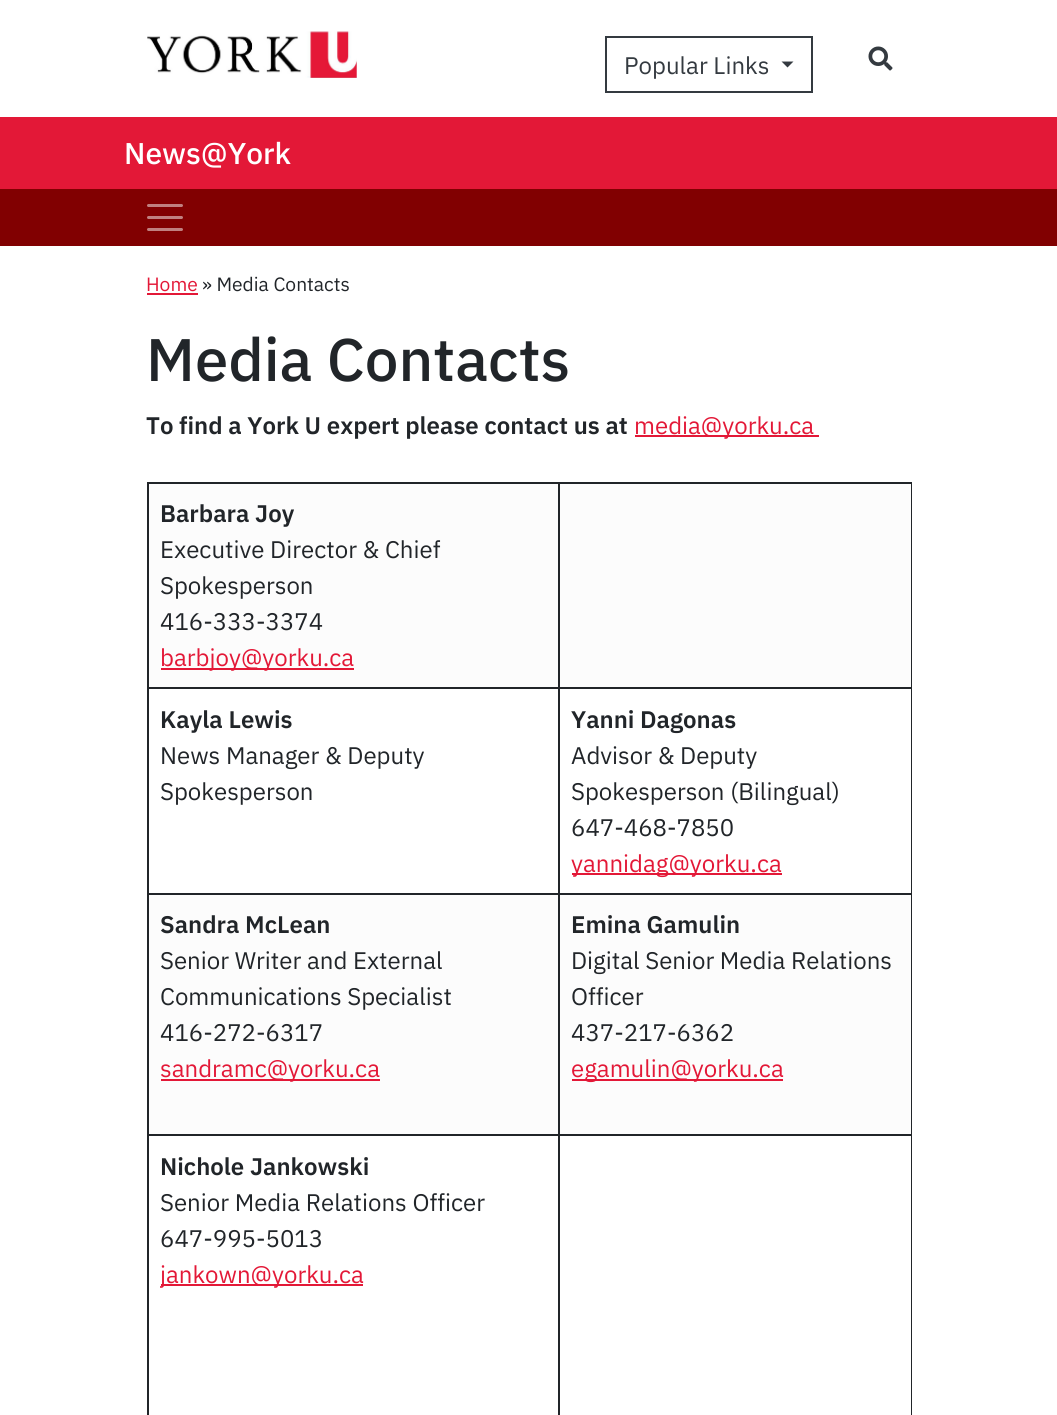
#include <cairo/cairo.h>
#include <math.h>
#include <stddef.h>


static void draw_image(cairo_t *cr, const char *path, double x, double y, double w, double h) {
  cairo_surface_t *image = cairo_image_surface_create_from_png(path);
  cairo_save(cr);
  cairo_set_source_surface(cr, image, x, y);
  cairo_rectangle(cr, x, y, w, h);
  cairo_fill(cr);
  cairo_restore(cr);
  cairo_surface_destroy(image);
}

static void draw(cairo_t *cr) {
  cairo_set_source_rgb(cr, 1, 1, 1);
  cairo_paint(cr);
  draw_image(cr, "images/1.png", 147, 31, 210, 47);
  cairo_rectangle(cr, 606, 37, 206, 55);
  cairo_set_source_rgb(cr, 52 / 255.0, 58 / 255.0, 64 / 255.0);
  cairo_stroke(cr);
  cairo_new_path(cr);
  cairo_move_to(cr, 781.5, 61.5);
  cairo_line_to(cr, 793.5, 61.5);
  cairo_line_to(cr, 787.5, 67.5);
  cairo_close_path(cr);
  cairo_fill(cr);
  draw_image(cr, "images/2.png", 868, 46, 25, 25);
  cairo_set_source_rgb(cr, 227 / 255.0, 24 / 255.0, 55 / 255.0);
  cairo_rectangle(cr, 0, 117, 1057, 72);
  cairo_fill(cr);
  cairo_set_source_rgb(cr, 129 / 255.0, 0, 1 / 255.0);
  cairo_rectangle(cr, 0, 189, 1057, 57);
  cairo_fill(cr);
  cairo_new_path(cr);
  cairo_move_to(cr, 148.5, 205.5);
  cairo_line_to(cr, 181.5, 205.5);
  cairo_move_to(cr, 148.5, 217.5);
  cairo_line_to(cr, 181.5, 217.5);
  cairo_move_to(cr, 148.5, 229.5);
  cairo_line_to(cr, 181.5, 229.5);
  cairo_set_source_rgb(cr, 192 / 255.0, 128 / 255.0, 128 / 255.0);
  cairo_set_line_width(cr, 3);
  cairo_set_line_cap(cr, CAIRO_LINE_CAP_ROUND);
  cairo_stroke(cr);
  cairo_set_source_rgb(cr, 227 / 255.0, 24 / 255.0, 55 / 255.0);
  cairo_rectangle(cr, 147, 293, 51, 2);
  cairo_fill(cr);
  cairo_rectangle(cr, 635, 435, 184, 2);
  cairo_fill(cr);
  cairo_set_source_rgb(cr, 252 / 255.0, 252 / 255.0, 252 / 255.0);
  cairo_rectangle(cr, 149, 484, 762, 203);
  cairo_fill(cr);
  cairo_set_source_rgb(cr, 33 / 255.0, 37 / 255.0, 41 / 255.0);
  cairo_rectangle(cr, 558, 482, 354, 2);
  cairo_fill(cr);
  cairo_rectangle(cr, 558, 687, 354, 2);
  cairo_fill(cr);
  cairo_rectangle(cr, 558, 893, 354, 2);
  cairo_fill(cr);
  cairo_set_source_rgb(cr, 252 / 255.0, 252 / 255.0, 252 / 255.0);
  cairo_rectangle(cr, 149, 895, 762, 239);
  cairo_fill(cr);
  cairo_set_source_rgb(cr, 33 / 255.0, 37 / 255.0, 41 / 255.0);
  cairo_rectangle(cr, 558, 1134, 354, 2);
  cairo_fill(cr);
  cairo_rectangle(cr, 558, 1134, 2, 281);
  cairo_fill(cr);
  cairo_rectangle(cr, 147, 1134, 413, 2);
  cairo_fill(cr);
  cairo_rectangle(cr, 558, 893, 2, 243);
  cairo_fill(cr);
  cairo_rectangle(cr, 147, 893, 413, 2);
  cairo_fill(cr);
  cairo_rectangle(cr, 558, 687, 2, 207);
  cairo_fill(cr);
  cairo_rectangle(cr, 147, 687, 413, 2);
  cairo_fill(cr);
  cairo_rectangle(cr, 558, 482, 2, 207);
  cairo_fill(cr);
  cairo_rectangle(cr, 147, 482, 413, 2);
  cairo_fill(cr);
  cairo_rectangle(cr, 147, 1134, 2, 281);
  cairo_fill(cr);
  cairo_rectangle(cr, 147, 893, 2, 243);
  cairo_fill(cr);
  cairo_rectangle(cr, 147, 687, 2, 207);
  cairo_fill(cr);
  cairo_rectangle(cr, 147, 482, 2, 207);
  cairo_fill(cr);
  cairo_set_source_rgb(cr, 227 / 255.0, 24 / 255.0, 55 / 255.0);
  cairo_rectangle(cr, 161, 668, 193, 2);
  cairo_fill(cr);
  cairo_set_source_rgb(cr, 33 / 255.0, 37 / 255.0, 41 / 255.0);
  cairo_rectangle(cr, 911, 1134, 1, 281);
  cairo_fill(cr);
  cairo_rectangle(cr, 911, 893, 1, 243);
  cairo_fill(cr);
  cairo_rectangle(cr, 911, 687, 1, 207);
  cairo_fill(cr);
  cairo_rectangle(cr, 911, 482, 1, 207);
  cairo_fill(cr);
  cairo_set_source_rgb(cr, 227 / 255.0, 24 / 255.0, 55 / 255.0);
  cairo_rectangle(cr, 572, 873, 210, 2);
  cairo_fill(cr);
  cairo_rectangle(cr, 161, 1079, 219, 2);
  cairo_fill(cr);
  cairo_rectangle(cr, 572, 1079, 211, 2);
  cairo_fill(cr);
  cairo_rectangle(cr, 161, 1284, 202, 2);
  cairo_fill(cr);
  cairo_select_font_face(cr, "IBM Plex Sans", CAIRO_FONT_SLANT_NORMAL, CAIRO_FONT_WEIGHT_NORMAL);
  cairo_set_font_size(cr, 24);
  cairo_set_source_rgb(cr, 52 / 255.0, 58 / 255.0, 64 / 255.0);
  cairo_move_to(cr, 624, 74);
  cairo_show_text(cr, "Popular Links");
  cairo_select_font_face(cr, "IBM Plex Sans Medium", CAIRO_FONT_SLANT_NORMAL, CAIRO_FONT_WEIGHT_NORMAL);
  cairo_set_font_size(cr, 30);
  cairo_set_source_rgb(cr, 1, 1, 1);
  cairo_move_to(cr, 124, 164);
  cairo_show_text(cr, "News@York");
  cairo_select_font_face(cr, "IBM Plex Sans", CAIRO_FONT_SLANT_NORMAL, CAIRO_FONT_WEIGHT_NORMAL);
  cairo_set_font_size(cr, 19.25);
  cairo_set_source_rgb(cr, 227 / 255.0, 24 / 255.0, 55 / 255.0);
  cairo_move_to(cr, 146, 291);
  cairo_show_text(cr, "Home");
  cairo_set_source_rgb(cr, 33 / 255.0, 37 / 255.0, 41 / 255.0);
  cairo_move_to(cr, 202, 291);
  cairo_show_text(cr, "» Media Contacts");
  cairo_select_font_face(cr, "IBM Plex Sans Medium", CAIRO_FONT_SLANT_NORMAL, CAIRO_FONT_WEIGHT_NORMAL);
  cairo_set_font_size(cr, 60);
  cairo_move_to(cr, 146, 381);
  cairo_show_text(cr, "Media Contacts");
  cairo_select_font_face(cr, "IBM Plex Sans SemiBold", CAIRO_FONT_SLANT_NORMAL, CAIRO_FONT_WEIGHT_NORMAL);
  cairo_set_font_size(cr, 24);
  cairo_move_to(cr, 146, 434);
  cairo_show_text(cr, "To find a York U expert please contact us at");
  cairo_select_font_face(cr, "IBM Plex Sans", CAIRO_FONT_SLANT_NORMAL, CAIRO_FONT_WEIGHT_NORMAL);
  cairo_set_source_rgb(cr, 227 / 255.0, 24 / 255.0, 55 / 255.0);
  cairo_move_to(cr, 634, 434);
  cairo_show_text(cr, "media@yorku.ca");
  cairo_select_font_face(cr, "IBM Plex Sans SemiBold", CAIRO_FONT_SLANT_NORMAL, CAIRO_FONT_WEIGHT_NORMAL);
  cairo_set_source_rgb(cr, 33 / 255.0, 37 / 255.0, 41 / 255.0);
  cairo_move_to(cr, 160, 522);
  cairo_show_text(cr, "Barbara Joy");
  cairo_select_font_face(cr, "IBM Plex Sans", CAIRO_FONT_SLANT_NORMAL, CAIRO_FONT_WEIGHT_NORMAL);
  cairo_move_to(cr, 160, 558);
  cairo_show_text(cr, "Executive Director & Chief");
  cairo_move_to(cr, 160, 594);
  cairo_show_text(cr, "Spokesperson");
  cairo_move_to(cr, 160, 630);
  cairo_show_text(cr, "416-333-3374");
  cairo_set_source_rgb(cr, 227 / 255.0, 24 / 255.0, 55 / 255.0);
  cairo_move_to(cr, 160, 666);
  cairo_show_text(cr, "barbjoy@yorku.ca");
  cairo_select_font_face(cr, "IBM Plex Sans SemiBold", CAIRO_FONT_SLANT_NORMAL, CAIRO_FONT_WEIGHT_NORMAL);
  cairo_set_source_rgb(cr, 33 / 255.0, 37 / 255.0, 41 / 255.0);
  cairo_move_to(cr, 160, 728);
  cairo_show_text(cr, "Kayla Lewis");
  cairo_select_font_face(cr, "IBM Plex Sans", CAIRO_FONT_SLANT_NORMAL, CAIRO_FONT_WEIGHT_NORMAL);
  cairo_move_to(cr, 160, 764);
  cairo_show_text(cr, "News Manager & Deputy");
  cairo_move_to(cr, 160, 800);
  cairo_show_text(cr, "Spokesperson");
  cairo_select_font_face(cr, "IBM Plex Sans SemiBold", CAIRO_FONT_SLANT_NORMAL, CAIRO_FONT_WEIGHT_NORMAL);
  cairo_move_to(cr, 571, 728);
  cairo_show_text(cr, "Yanni Dagonas");
  cairo_select_font_face(cr, "IBM Plex Sans", CAIRO_FONT_SLANT_NORMAL, CAIRO_FONT_WEIGHT_NORMAL);
  cairo_move_to(cr, 571, 764);
  cairo_show_text(cr, "Advisor & Deputy");
  cairo_move_to(cr, 571, 800);
  cairo_show_text(cr, "Spokesperson (Bilingual)");
  cairo_move_to(cr, 571, 836);
  cairo_show_text(cr, "647-468-7850");
  cairo_set_source_rgb(cr, 227 / 255.0, 24 / 255.0, 55 / 255.0);
  cairo_move_to(cr, 571, 872);
  cairo_show_text(cr, "yannidag@yorku.ca");
  cairo_select_font_face(cr, "IBM Plex Sans SemiBold", CAIRO_FONT_SLANT_NORMAL, CAIRO_FONT_WEIGHT_NORMAL);
  cairo_set_source_rgb(cr, 33 / 255.0, 37 / 255.0, 41 / 255.0);
  cairo_move_to(cr, 160, 933);
  cairo_show_text(cr, "Sandra McLean");
  cairo_select_font_face(cr, "IBM Plex Sans", CAIRO_FONT_SLANT_NORMAL, CAIRO_FONT_WEIGHT_NORMAL);
  cairo_move_to(cr, 160, 969);
  cairo_show_text(cr, "Senior Writer and External");
  cairo_move_to(cr, 160, 1005);
  cairo_show_text(cr, "Communications Specialist");
  cairo_move_to(cr, 160, 1041);
  cairo_show_text(cr, "416-272-6317");
  cairo_set_source_rgb(cr, 227 / 255.0, 24 / 255.0, 55 / 255.0);
  cairo_move_to(cr, 160, 1077);
  cairo_show_text(cr, "sandramc@yorku.ca");
  cairo_select_font_face(cr, "IBM Plex Sans SemiBold", CAIRO_FONT_SLANT_NORMAL, CAIRO_FONT_WEIGHT_NORMAL);
  cairo_set_source_rgb(cr, 33 / 255.0, 37 / 255.0, 41 / 255.0);
  cairo_move_to(cr, 571, 933);
  cairo_show_text(cr, "Emina Gamulin");
  cairo_select_font_face(cr, "IBM Plex Sans", CAIRO_FONT_SLANT_NORMAL, CAIRO_FONT_WEIGHT_NORMAL);
  cairo_move_to(cr, 571, 969);
  cairo_show_text(cr, "Digital Senior Media Relations");
  cairo_move_to(cr, 571, 1005);
  cairo_show_text(cr, "Officer");
  cairo_move_to(cr, 571, 1041);
  cairo_show_text(cr, "437-217-6362");
  cairo_set_source_rgb(cr, 227 / 255.0, 24 / 255.0, 55 / 255.0);
  cairo_move_to(cr, 571, 1077);
  cairo_show_text(cr, "egamulin@yorku.ca");
  cairo_select_font_face(cr, "IBM Plex Sans SemiBold", CAIRO_FONT_SLANT_NORMAL, CAIRO_FONT_WEIGHT_NORMAL);
  cairo_set_source_rgb(cr, 33 / 255.0, 37 / 255.0, 41 / 255.0);
  cairo_move_to(cr, 160, 1175);
  cairo_show_text(cr, "Nichole Jankowski");
  cairo_select_font_face(cr, "IBM Plex Sans", CAIRO_FONT_SLANT_NORMAL, CAIRO_FONT_WEIGHT_NORMAL);
  cairo_move_to(cr, 160, 1211);
  cairo_show_text(cr, "Senior Media Relations Officer");
  cairo_move_to(cr, 160, 1247);
  cairo_show_text(cr, "647-995-5013");
  cairo_set_source_rgb(cr, 227 / 255.0, 24 / 255.0, 55 / 255.0);
  cairo_move_to(cr, 160, 1283);
  cairo_show_text(cr, "jankown@yorku.ca");
}

int main(void) {
  cairo_surface_t *surface = cairo_image_surface_create(CAIRO_FORMAT_RGB24, 1057, 1415);
  cairo_t *cr = cairo_create(surface);
  cairo_font_options_t *options = cairo_font_options_create();
  cairo_font_options_set_hint_metrics(options, CAIRO_HINT_METRICS_OFF);
  cairo_font_options_set_hint_style(options, CAIRO_HINT_STYLE_NONE);
  cairo_set_font_options(cr, options);
  cairo_set_miter_limit(cr, 4);
  draw(cr);
  cairo_surface_write_to_png(surface, "out.png");
  cairo_font_options_destroy(options);
  cairo_destroy(cr);
  cairo_surface_destroy(surface);
  return 0;
}
